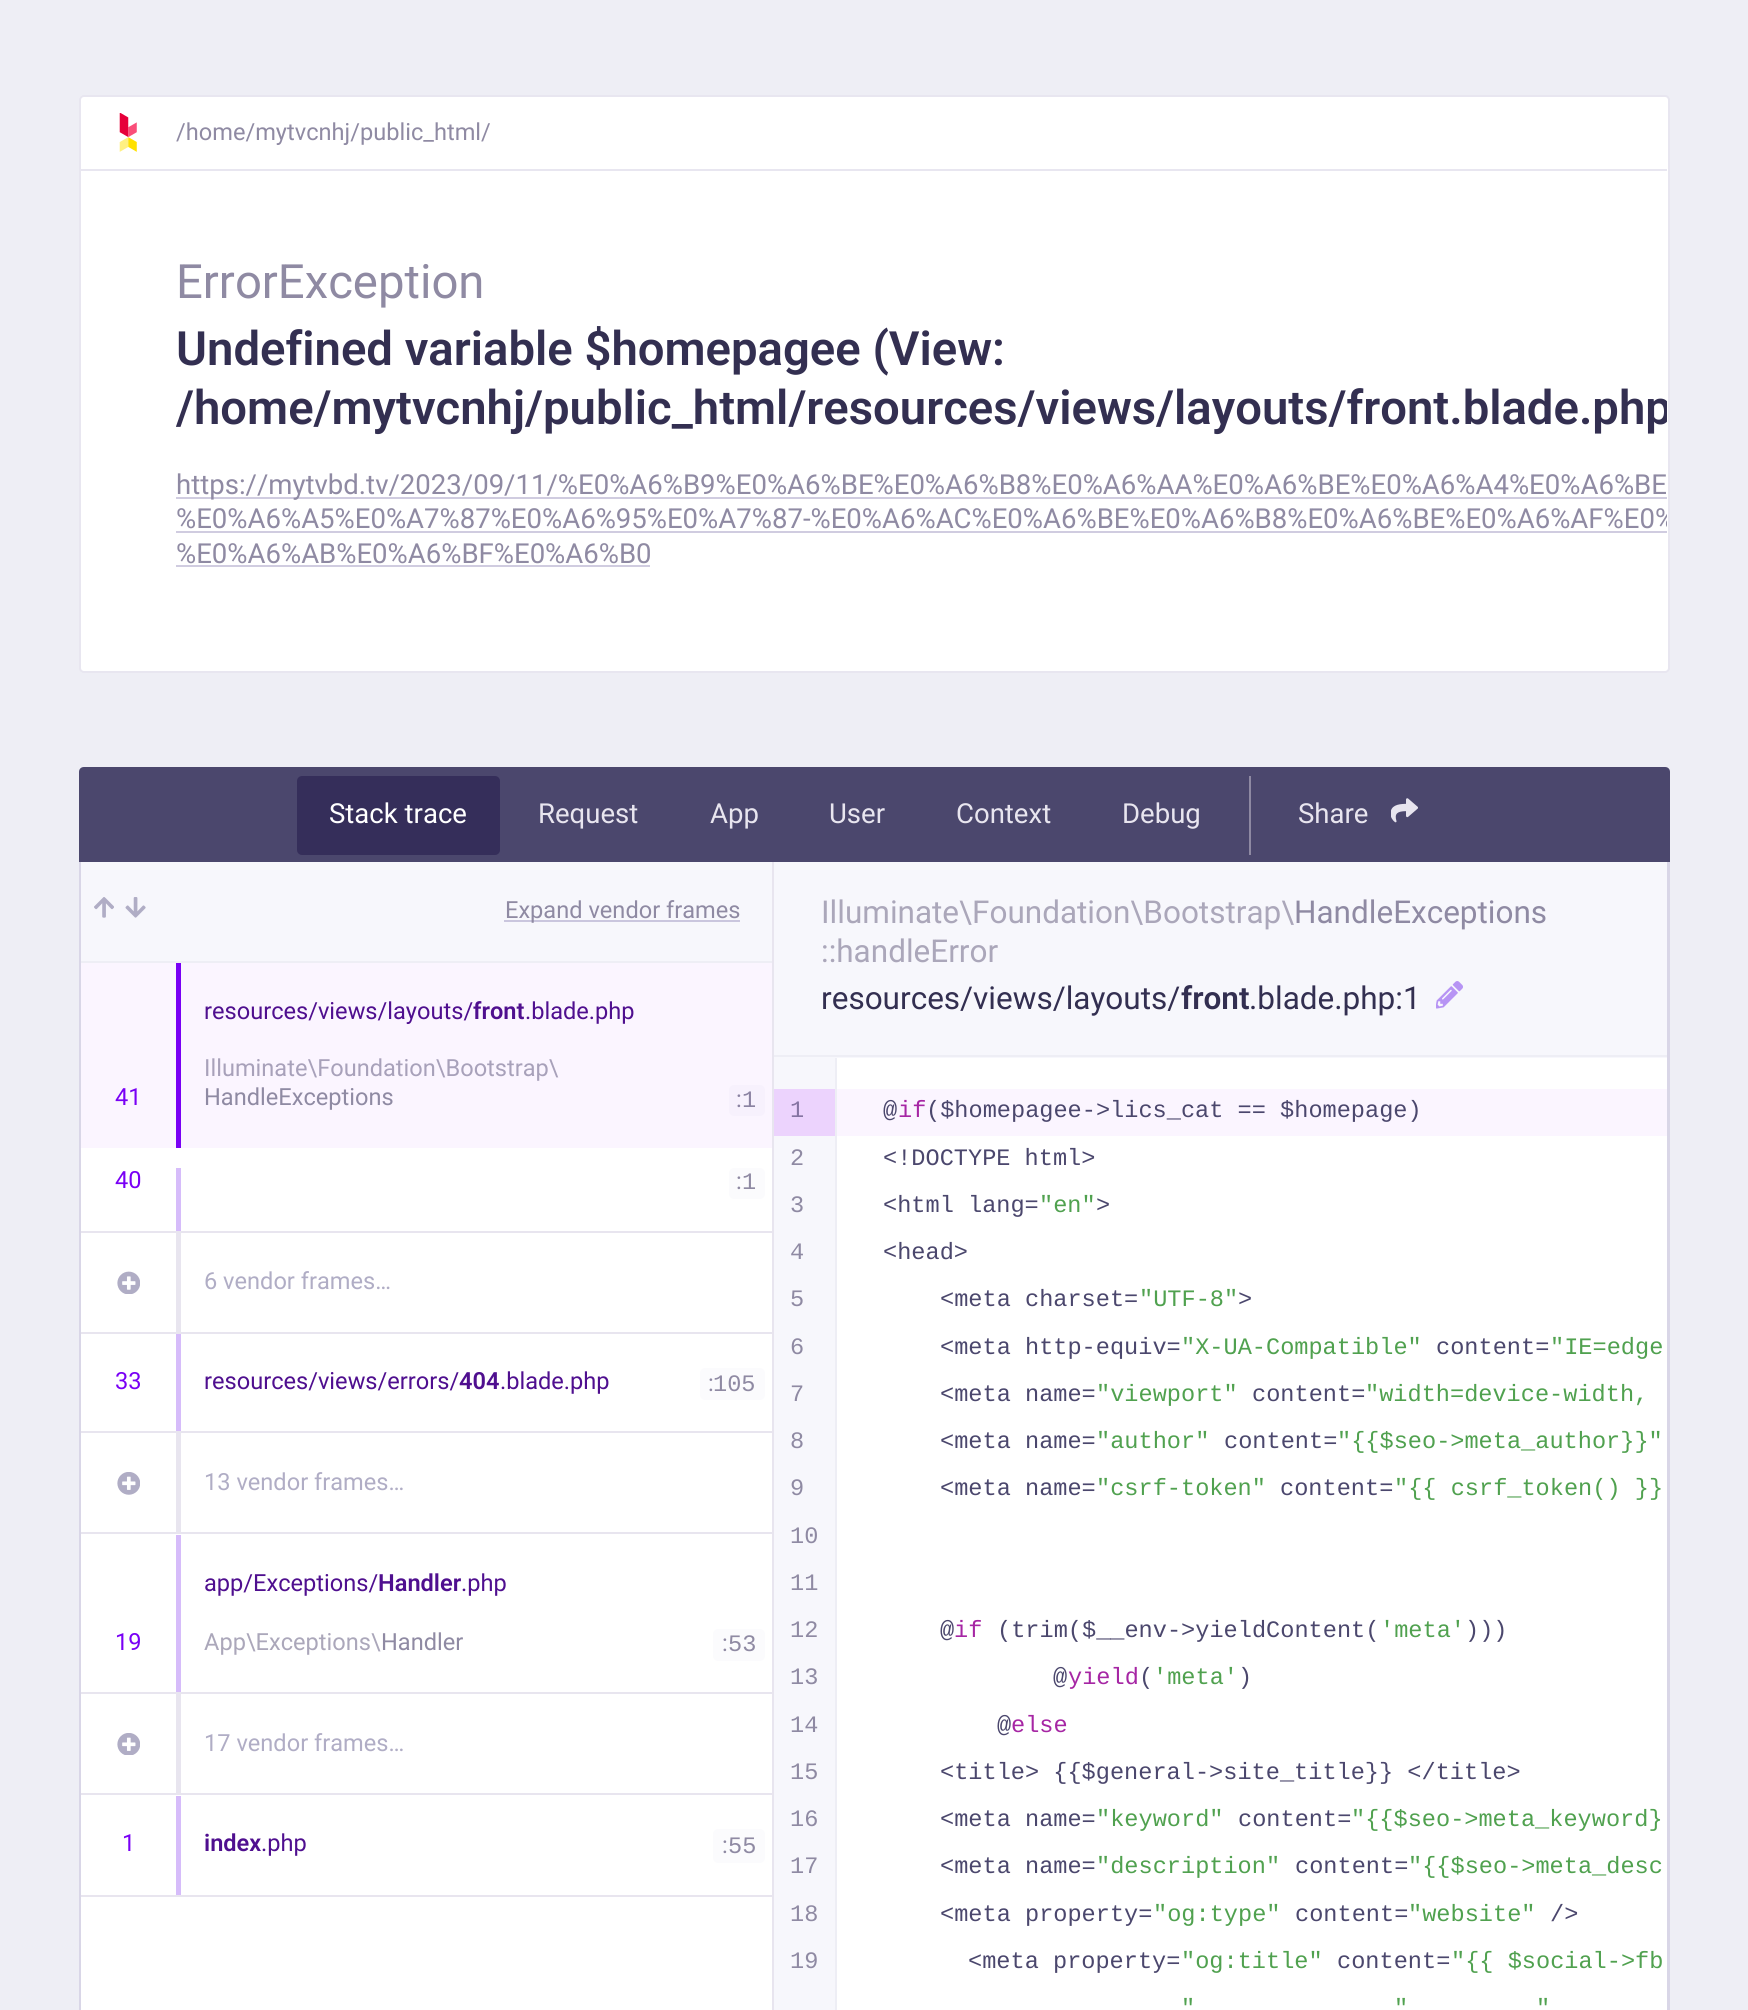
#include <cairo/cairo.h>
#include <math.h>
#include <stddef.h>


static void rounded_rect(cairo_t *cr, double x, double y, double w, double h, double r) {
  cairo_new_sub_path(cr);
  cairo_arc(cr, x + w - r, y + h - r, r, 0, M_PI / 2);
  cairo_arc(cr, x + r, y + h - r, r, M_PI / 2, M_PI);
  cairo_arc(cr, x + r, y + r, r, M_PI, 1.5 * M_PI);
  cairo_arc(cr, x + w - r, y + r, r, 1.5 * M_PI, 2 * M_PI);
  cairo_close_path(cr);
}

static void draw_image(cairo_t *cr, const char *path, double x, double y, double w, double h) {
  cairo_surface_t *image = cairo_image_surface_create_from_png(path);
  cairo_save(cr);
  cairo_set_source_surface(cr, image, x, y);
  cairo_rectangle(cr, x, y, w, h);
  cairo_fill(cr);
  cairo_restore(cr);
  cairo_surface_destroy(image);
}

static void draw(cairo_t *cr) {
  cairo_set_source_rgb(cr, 238 / 255.0, 238 / 255.0, 245 / 255.0);
  cairo_paint(cr);
  cairo_set_source_rgb(cr, 1, 1, 1);
  rounded_rect(cr, 79, 95, 1591, 578, 5);
  cairo_fill(cr);
  rounded_rect(cr, 80, 96, 1589, 576, 4);
  cairo_set_source_rgba(cr, 25 / 255.0, 0, 100 / 255.0, 0.1);
  cairo_stroke(cr);
  cairo_set_source_rgb(cr, 232 / 255.0, 230 / 255.0, 240 / 255.0);
  cairo_rectangle(cr, 81, 169, 1586, 2);
  cairo_fill(cr);
  draw_image(cr, "images/1.png", 119, 113, 18, 39);
  cairo_set_source_rgb(cr, 208 / 255.0, 204 / 255.0, 224 / 255.0);
  cairo_rectangle(cr, 176, 497, 1491, 2);
  cairo_fill(cr);
  cairo_rectangle(cr, 176, 531, 1491, 2);
  cairo_fill(cr);
  cairo_rectangle(cr, 176, 565, 474, 2);
  cairo_fill(cr);
  cairo_set_source_rgb(cr, 75 / 255.0, 71 / 255.0, 109 / 255.0);
  cairo_new_path(cr);
  cairo_move_to(cr, 84, 767);
  cairo_line_to(cr, 1665, 767);
  cairo_curve_to(cr, 1668, 767, 1670, 769, 1670, 772);
  cairo_line_to(cr, 1670, 862);
  cairo_line_to(cr, 79, 862);
  cairo_line_to(cr, 79, 772);
  cairo_curve_to(cr, 79, 769, 81, 767, 84, 767);
  cairo_close_path(cr);
  cairo_fill(cr);
  cairo_set_source_rgb(cr, 53 / 255.0, 46 / 255.0, 90 / 255.0);
  rounded_rect(cr, 297, 776, 203, 79, 5);
  cairo_fill(cr);
  cairo_set_source_rgb(cr, 142 / 255.0, 137 / 255.0, 162 / 255.0);
  cairo_rectangle(cr, 1249, 776, 2, 79);
  cairo_fill(cr);
  draw_image(cr, "images/2.png", 1391, 798, 27, 25);
  cairo_set_source_rgb(cr, 217 / 255.0, 214 / 255.0, 231 / 255.0);
  cairo_new_path(cr);
  cairo_move_to(cr, 1670, 862);
  cairo_line_to(cr, 1670, 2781);
  cairo_line_to(cr, 1667, 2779);
  cairo_line_to(cr, 1667, 862);
  cairo_close_path(cr);
  cairo_fill(cr);
  cairo_new_path(cr);
  cairo_move_to(cr, 79, 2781);
  cairo_line_to(cr, 79, 862);
  cairo_line_to(cr, 81, 862);
  cairo_line_to(cr, 81, 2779);
  cairo_close_path(cr);
  cairo_fill(cr);
  cairo_set_source_rgb(cr, 1, 1, 1);
  cairo_rectangle(cr, 81, 1148, 691, 862);
  cairo_fill(cr);
  cairo_set_source_rgb(cr, 232 / 255.0, 229 / 255.0, 239 / 255.0);
  cairo_rectangle(cr, 772, 862, 2, 1148);
  cairo_fill(cr);
  cairo_set_source_rgb(cr, 247 / 255.0, 247 / 255.0, 252 / 255.0);
  cairo_rectangle(cr, 81, 862, 691, 99);
  cairo_fill(cr);
  draw_image(cr, "images/3.png", 94, 897, 20, 21);
  draw_image(cr, "images/4.png", 125, 897, 21, 21);
  cairo_set_source_rgb(cr, 202 / 255.0, 198 / 255.0, 222 / 255.0);
  cairo_rectangle(cr, 504, 920, 236, 2);
  cairo_fill(cr);
  cairo_set_source_rgb(cr, 232 / 255.0, 229 / 255.0, 239 / 255.0);
  cairo_rectangle(cr, 81, 1231, 691, 2);
  cairo_fill(cr);
  cairo_set_source_rgb(cr, 251 / 255.0, 245 / 255.0, 1);
  cairo_rectangle(cr, 81, 963, 691, 185);
  cairo_fill(cr);
  cairo_set_source_rgb(cr, 121 / 255.0, 0, 245 / 255.0);
  cairo_rectangle(cr, 176, 963, 5, 185);
  cairo_fill(cr);
  cairo_set_source_rgb(cr, 247 / 255.0, 241 / 255.0, 253 / 255.0);
  rounded_rect(cr, 729, 1085, 36, 31, 5);
  cairo_fill(cr);
  cairo_set_source_rgb(cr, 214 / 255.0, 188 / 255.0, 250 / 255.0);
  cairo_rectangle(cr, 176, 1168, 5, 63);
  cairo_fill(cr);
  cairo_set_source_rgb(cr, 251 / 255.0, 251 / 255.0, 253 / 255.0);
  rounded_rect(cr, 729, 1168, 36, 31, 5);
  cairo_fill(cr);
  cairo_set_source_rgb(cr, 232 / 255.0, 229 / 255.0, 239 / 255.0);
  cairo_rectangle(cr, 81, 1332, 691, 2);
  cairo_fill(cr);
  draw_image(cr, "images/5.png", 117, 1271, 23, 23);
  cairo_rectangle(cr, 176, 1233, 5, 99);
  cairo_fill(cr);
  cairo_rectangle(cr, 81, 1431, 691, 2);
  cairo_fill(cr);
  cairo_set_source_rgb(cr, 214 / 255.0, 188 / 255.0, 250 / 255.0);
  cairo_rectangle(cr, 176, 1334, 5, 97);
  cairo_fill(cr);
  cairo_set_source_rgb(cr, 251 / 255.0, 251 / 255.0, 253 / 255.0);
  rounded_rect(cr, 700, 1368, 65, 32, 5);
  cairo_fill(cr);
  cairo_set_source_rgb(cr, 232 / 255.0, 229 / 255.0, 239 / 255.0);
  cairo_rectangle(cr, 81, 1532, 691, 2);
  cairo_fill(cr);
  draw_image(cr, "images/6.png", 117, 1472, 23, 23);
  cairo_rectangle(cr, 176, 1433, 5, 99);
  cairo_fill(cr);
  cairo_rectangle(cr, 81, 1692, 691, 2);
  cairo_fill(cr);
  cairo_set_source_rgb(cr, 214 / 255.0, 188 / 255.0, 250 / 255.0);
  cairo_rectangle(cr, 176, 1535, 5, 157);
  cairo_fill(cr);
  cairo_set_source_rgb(cr, 251 / 255.0, 251 / 255.0, 253 / 255.0);
  rounded_rect(cr, 713, 1629, 52, 32, 5);
  cairo_fill(cr);
  cairo_set_source_rgb(cr, 232 / 255.0, 229 / 255.0, 239 / 255.0);
  cairo_rectangle(cr, 81, 1793, 691, 2);
  cairo_fill(cr);
  draw_image(cr, "images/7.png", 117, 1733, 23, 22);
  cairo_rectangle(cr, 176, 1694, 5, 99);
  cairo_fill(cr);
  cairo_rectangle(cr, 81, 1895, 691, 2);
  cairo_fill(cr);
  cairo_set_source_rgb(cr, 214 / 255.0, 188 / 255.0, 250 / 255.0);
  cairo_rectangle(cr, 176, 1796, 5, 99);
  cairo_fill(cr);
  cairo_set_source_rgb(cr, 251 / 255.0, 251 / 255.0, 253 / 255.0);
  rounded_rect(cr, 713, 1829, 52, 34, 5);
  cairo_fill(cr);
  cairo_set_source_rgb(cr, 247 / 255.0, 247 / 255.0, 252 / 255.0);
  cairo_rectangle(cr, 774, 862, 893, 196);
  cairo_fill(cr);
  cairo_set_source_rgb(cr, 238 / 255.0, 238 / 255.0, 245 / 255.0);
  cairo_rectangle(cr, 774, 1055, 893, 2);
  cairo_fill(cr);
  draw_image(cr, "images/8.png", 1436, 981, 27, 28);
  cairo_set_source_rgb(cr, 1, 1, 1);
  cairo_rectangle(cr, 837, 1058, 830, 952);
  cairo_fill(cr);
  cairo_set_source_rgb(cr, 247 / 255.0, 247 / 255.0, 252 / 255.0);
  cairo_rectangle(cr, 774, 1058, 61, 952);
  cairo_fill(cr);
  cairo_set_source_rgb(cr, 236 / 255.0, 211 / 255.0, 253 / 255.0);
  cairo_rectangle(cr, 774, 1089, 61, 47);
  cairo_fill(cr);
  cairo_set_source_rgb(cr, 251 / 255.0, 245 / 255.0, 1);
  cairo_rectangle(cr, 837, 1089, 830, 47);
  cairo_fill(cr);
  cairo_select_font_face(cr, "Roboto", CAIRO_FONT_SLANT_NORMAL, CAIRO_FONT_WEIGHT_NORMAL);
  cairo_set_font_size(cr, 23.6);
  cairo_set_source_rgb(cr, 143 / 255.0, 138 / 255.0, 163 / 255.0);
  cairo_move_to(cr, 176, 140);
  cairo_show_text(cr, "/home/mytvcnhj/public_html/");
  cairo_set_font_size(cr, 47.25);
  cairo_move_to(cr, 176, 298);
  cairo_show_text(cr, "ErrorException");
  cairo_select_font_face(cr, "Roboto SemiBold", CAIRO_FONT_SLANT_NORMAL, CAIRO_FONT_WEIGHT_NORMAL);
  cairo_set_source_rgb(cr, 51 / 255.0, 47 / 255.0, 81 / 255.0);
  cairo_move_to(cr, 176, 365);
  cairo_show_text(cr, "Undefined variable $homepagee (View:");
  cairo_save(cr);
  cairo_rectangle(cr, 176, 320, 1491, 119);
  cairo_clip(cr);
  cairo_move_to(cr, 176, 424);
  cairo_show_text(cr, "/home/mytvcnhj/public_html/resources/views/layouts/front.blade.php");
  cairo_restore(cr);
  cairo_select_font_face(cr, "Roboto", CAIRO_FONT_SLANT_NORMAL, CAIRO_FONT_WEIGHT_NORMAL);
  cairo_set_font_size(cr, 27.55);
  cairo_set_source_rgb(cr, 143 / 255.0, 138 / 255.0, 163 / 255.0);
  cairo_move_to(cr, 176, 494);
  cairo_show_text(cr, "https://mytvbd.tv/2023/09/11/%E0%A6%B9%E0%A6%BE%E0%A6%B8%E0%A6%AA%E0%A6%BE%E0%A6%A4%E0%A6%BE");
  cairo_save(cr);
  cairo_rectangle(cr, 81, 171, 1586, 500);
  cairo_clip(cr);
  cairo_move_to(cr, 176, 528);
  cairo_show_text(cr, "%E0%A6%A5%E0%A7%87%E0%A6%95%E0%A7%87-%E0%A6%AC%E0%A6%BE%E0%A6%B8%E0%A6%BE%E0%A6%AF%E0%");
  cairo_restore(cr);
  cairo_move_to(cr, 176, 563);
  cairo_show_text(cr, "%E0%A6%AB%E0%A6%BF%E0%A6%B0");
  cairo_set_source_rgb(cr, 1, 1, 1);
  cairo_move_to(cr, 329, 823);
  cairo_show_text(cr, "Stack trace");
  cairo_set_source_rgb(cr, 232 / 255.0, 229 / 255.0, 239 / 255.0);
  cairo_move_to(cr, 538, 823);
  cairo_show_text(cr, "Request");
  cairo_move_to(cr, 710, 823);
  cairo_show_text(cr, "App");
  cairo_move_to(cr, 829, 823);
  cairo_show_text(cr, "User");
  cairo_move_to(cr, 956, 823);
  cairo_show_text(cr, "Context");
  cairo_move_to(cr, 1122, 823);
  cairo_show_text(cr, "Debug");
  cairo_move_to(cr, 1298, 823);
  cairo_show_text(cr, "Share");
  cairo_set_font_size(cr, 23.6);
  cairo_set_source_rgb(cr, 143 / 255.0, 138 / 255.0, 163 / 255.0);
  cairo_move_to(cr, 505, 918);
  cairo_show_text(cr, "Expand vendor frames");
  cairo_set_source_rgb(cr, 121 / 255.0, 0, 245 / 255.0);
  cairo_move_to(cr, 115, 1105);
  cairo_show_text(cr, "41");
  cairo_set_source_rgb(cr, 79 / 255.0, 15 / 255.0, 143 / 255.0);
  cairo_move_to(cr, 204, 1019);
  cairo_show_text(cr, "resources/views/layouts/");
  cairo_select_font_face(cr, "Roboto SemiBold", CAIRO_FONT_SLANT_NORMAL, CAIRO_FONT_WEIGHT_NORMAL);
  cairo_move_to(cr, 473, 1019);
  cairo_show_text(cr, "front");
  cairo_select_font_face(cr, "Roboto", CAIRO_FONT_SLANT_NORMAL, CAIRO_FONT_WEIGHT_NORMAL);
  cairo_move_to(cr, 525, 1019);
  cairo_show_text(cr, ".blade.php");
  cairo_set_source_rgb(cr, 168 / 255.0, 161 / 255.0, 186 / 255.0);
  cairo_move_to(cr, 204, 1076);
  cairo_show_text(cr, "Illuminate\\Foundation\\Bootstrap\\");
  cairo_set_source_rgb(cr, 143 / 255.0, 138 / 255.0, 163 / 255.0);
  cairo_move_to(cr, 204, 1105);
  cairo_show_text(cr, "HandleExceptions");
  cairo_set_source_rgb(cr, 139 / 255.0, 131 / 255.0, 162 / 255.0);
  cairo_move_to(cr, 736, 1107);
  cairo_show_text(cr, ":");
  cairo_select_font_face(cr, "Liberation Mono", CAIRO_FONT_SLANT_NORMAL, CAIRO_FONT_WEIGHT_NORMAL);
  cairo_move_to(cr, 742, 1107);
  cairo_show_text(cr, "1");
  cairo_select_font_face(cr, "Roboto", CAIRO_FONT_SLANT_NORMAL, CAIRO_FONT_WEIGHT_NORMAL);
  cairo_set_source_rgb(cr, 121 / 255.0, 0, 245 / 255.0);
  cairo_move_to(cr, 115, 1188);
  cairo_show_text(cr, "40");
  cairo_set_source_rgb(cr, 143 / 255.0, 138 / 255.0, 163 / 255.0);
  cairo_move_to(cr, 736, 1189);
  cairo_show_text(cr, ":");
  cairo_select_font_face(cr, "Liberation Mono", CAIRO_FONT_SLANT_NORMAL, CAIRO_FONT_WEIGHT_NORMAL);
  cairo_move_to(cr, 742, 1189);
  cairo_show_text(cr, "1");
  cairo_select_font_face(cr, "Roboto", CAIRO_FONT_SLANT_NORMAL, CAIRO_FONT_WEIGHT_NORMAL);
  cairo_set_source_rgb(cr, 176 / 255.0, 173 / 255.0, 197 / 255.0);
  cairo_move_to(cr, 204, 1289);
  cairo_show_text(cr, "6 vendor frames…");
  cairo_set_source_rgb(cr, 121 / 255.0, 0, 245 / 255.0);
  cairo_move_to(cr, 115, 1389);
  cairo_show_text(cr, "33");
  cairo_set_source_rgb(cr, 79 / 255.0, 15 / 255.0, 143 / 255.0);
  cairo_move_to(cr, 204, 1389);
  cairo_show_text(cr, "resources/views/errors/");
  cairo_select_font_face(cr, "Roboto SemiBold", CAIRO_FONT_SLANT_NORMAL, CAIRO_FONT_WEIGHT_NORMAL);
  cairo_move_to(cr, 459, 1389);
  cairo_show_text(cr, "404");
  cairo_select_font_face(cr, "Roboto", CAIRO_FONT_SLANT_NORMAL, CAIRO_FONT_WEIGHT_NORMAL);
  cairo_move_to(cr, 500, 1389);
  cairo_show_text(cr, ".blade.php");
  cairo_set_source_rgb(cr, 143 / 255.0, 138 / 255.0, 163 / 255.0);
  cairo_move_to(cr, 708, 1391);
  cairo_show_text(cr, ":");
  cairo_select_font_face(cr, "Liberation Mono", CAIRO_FONT_SLANT_NORMAL, CAIRO_FONT_WEIGHT_NORMAL);
  cairo_move_to(cr, 713, 1391);
  cairo_show_text(cr, "105");
  cairo_select_font_face(cr, "Roboto", CAIRO_FONT_SLANT_NORMAL, CAIRO_FONT_WEIGHT_NORMAL);
  cairo_set_source_rgb(cr, 176 / 255.0, 173 / 255.0, 197 / 255.0);
  cairo_move_to(cr, 204, 1490);
  cairo_show_text(cr, "13 vendor frames…");
  cairo_set_source_rgb(cr, 121 / 255.0, 0, 245 / 255.0);
  cairo_move_to(cr, 115, 1650);
  cairo_show_text(cr, "19");
  cairo_set_source_rgb(cr, 79 / 255.0, 15 / 255.0, 143 / 255.0);
  cairo_move_to(cr, 204, 1591);
  cairo_show_text(cr, "app/Exceptions/");
  cairo_select_font_face(cr, "Roboto SemiBold", CAIRO_FONT_SLANT_NORMAL, CAIRO_FONT_WEIGHT_NORMAL);
  cairo_move_to(cr, 378, 1591);
  cairo_show_text(cr, "Handler");
  cairo_select_font_face(cr, "Roboto", CAIRO_FONT_SLANT_NORMAL, CAIRO_FONT_WEIGHT_NORMAL);
  cairo_move_to(cr, 461, 1591);
  cairo_show_text(cr, ".php");
  cairo_set_source_rgb(cr, 171 / 255.0, 167 / 255.0, 186 / 255.0);
  cairo_move_to(cr, 204, 1650);
  cairo_show_text(cr, "App\\Exceptions\\");
  cairo_set_source_rgb(cr, 143 / 255.0, 138 / 255.0, 163 / 255.0);
  cairo_move_to(cr, 381, 1650);
  cairo_show_text(cr, "Handler");
  cairo_move_to(cr, 722, 1651);
  cairo_show_text(cr, ":");
  cairo_select_font_face(cr, "Liberation Mono", CAIRO_FONT_SLANT_NORMAL, CAIRO_FONT_WEIGHT_NORMAL);
  cairo_move_to(cr, 728, 1651);
  cairo_show_text(cr, "53");
  cairo_select_font_face(cr, "Roboto", CAIRO_FONT_SLANT_NORMAL, CAIRO_FONT_WEIGHT_NORMAL);
  cairo_set_source_rgb(cr, 176 / 255.0, 173 / 255.0, 197 / 255.0);
  cairo_move_to(cr, 204, 1751);
  cairo_show_text(cr, "17 vendor frames…");
  cairo_set_source_rgb(cr, 121 / 255.0, 0, 245 / 255.0);
  cairo_move_to(cr, 122, 1851);
  cairo_show_text(cr, "1");
  cairo_select_font_face(cr, "Roboto SemiBold", CAIRO_FONT_SLANT_NORMAL, CAIRO_FONT_WEIGHT_NORMAL);
  cairo_set_source_rgb(cr, 79 / 255.0, 15 / 255.0, 143 / 255.0);
  cairo_move_to(cr, 204, 1851);
  cairo_show_text(cr, "index");
  cairo_select_font_face(cr, "Roboto", CAIRO_FONT_SLANT_NORMAL, CAIRO_FONT_WEIGHT_NORMAL);
  cairo_move_to(cr, 261, 1851);
  cairo_show_text(cr, ".php");
  cairo_set_source_rgb(cr, 143 / 255.0, 138 / 255.0, 163 / 255.0);
  cairo_move_to(cr, 722, 1853);
  cairo_show_text(cr, ":");
  cairo_select_font_face(cr, "Liberation Mono", CAIRO_FONT_SLANT_NORMAL, CAIRO_FONT_WEIGHT_NORMAL);
  cairo_move_to(cr, 728, 1853);
  cairo_show_text(cr, "55");
  cairo_select_font_face(cr, "Roboto", CAIRO_FONT_SLANT_NORMAL, CAIRO_FONT_WEIGHT_NORMAL);
  cairo_set_font_size(cr, 31.5);
  cairo_set_source_rgb(cr, 171 / 255.0, 167 / 255.0, 186 / 255.0);
  cairo_move_to(cr, 821, 923);
  cairo_show_text(cr, "Illuminate\\Foundation\\Bootstrap\\");
  cairo_set_source_rgb(cr, 143 / 255.0, 138 / 255.0, 163 / 255.0);
  cairo_move_to(cr, 1294, 923);
  cairo_show_text(cr, "HandleExceptions");
  cairo_set_source_rgb(cr, 171 / 255.0, 167 / 255.0, 186 / 255.0);
  cairo_move_to(cr, 821, 962);
  cairo_show_text(cr, "::handleError");
  cairo_set_source_rgb(cr, 51 / 255.0, 47 / 255.0, 81 / 255.0);
  cairo_move_to(cr, 821, 1009);
  cairo_show_text(cr, "resources/views/layouts/");
  cairo_select_font_face(cr, "Roboto SemiBold", CAIRO_FONT_SLANT_NORMAL, CAIRO_FONT_WEIGHT_NORMAL);
  cairo_move_to(cr, 1181, 1009);
  cairo_show_text(cr, "front");
  cairo_select_font_face(cr, "Roboto", CAIRO_FONT_SLANT_NORMAL, CAIRO_FONT_WEIGHT_NORMAL);
  cairo_move_to(cr, 1249, 1009);
  cairo_show_text(cr, ".blade.php:1");
  cairo_select_font_face(cr, "Liberation Mono", CAIRO_FONT_SLANT_NORMAL, CAIRO_FONT_WEIGHT_NORMAL);
  cairo_set_font_size(cr, 23.6);
  cairo_set_source_rgb(cr, 133 / 255.0, 116 / 255.0, 162 / 255.0);
  cairo_move_to(cr, 790, 1117);
  cairo_show_text(cr, "1");
  cairo_set_source_rgb(cr, 143 / 255.0, 138 / 255.0, 163 / 255.0);
  cairo_move_to(cr, 790, 1165);
  cairo_show_text(cr, "2");
  cairo_move_to(cr, 790, 1212);
  cairo_show_text(cr, "3");
  cairo_move_to(cr, 790, 1259);
  cairo_show_text(cr, "4");
  cairo_move_to(cr, 790, 1306);
  cairo_show_text(cr, "5");
  cairo_move_to(cr, 790, 1354);
  cairo_show_text(cr, "6");
  cairo_move_to(cr, 790, 1401);
  cairo_show_text(cr, "7");
  cairo_move_to(cr, 790, 1448);
  cairo_show_text(cr, "8");
  cairo_move_to(cr, 790, 1495);
  cairo_show_text(cr, "9");
  cairo_move_to(cr, 790, 1543);
  cairo_show_text(cr, "10");
  cairo_move_to(cr, 790, 1590);
  cairo_show_text(cr, "11");
  cairo_move_to(cr, 790, 1637);
  cairo_show_text(cr, "12");
  cairo_move_to(cr, 790, 1684);
  cairo_show_text(cr, "13");
  cairo_move_to(cr, 790, 1732);
  cairo_show_text(cr, "14");
  cairo_move_to(cr, 790, 1779);
  cairo_show_text(cr, "15");
  cairo_move_to(cr, 790, 1826);
  cairo_show_text(cr, "16");
  cairo_move_to(cr, 790, 1873);
  cairo_show_text(cr, "17");
  cairo_move_to(cr, 790, 1921);
  cairo_show_text(cr, "18");
  cairo_move_to(cr, 790, 1968);
  cairo_show_text(cr, "19");
  cairo_set_source_rgb(cr, 75 / 255.0, 71 / 255.0, 109 / 255.0);
  cairo_move_to(cr, 883, 1117);
  cairo_show_text(cr, "@");
  cairo_set_source_rgb(cr, 166 / 255.0, 38 / 255.0, 164 / 255.0);
  cairo_move_to(cr, 898, 1117);
  cairo_show_text(cr, "if");
  cairo_set_source_rgb(cr, 75 / 255.0, 71 / 255.0, 109 / 255.0);
  cairo_move_to(cr, 926, 1117);
  cairo_show_text(cr, "($homepagee->lics_cat == $homepage)");
  cairo_move_to(cr, 883, 1165);
  cairo_show_text(cr, "<!DOCTYPE html>");
  cairo_move_to(cr, 883, 1212);
  cairo_show_text(cr, "<html lang=");
  cairo_set_source_rgb(cr, 80 / 255.0, 161 / 255.0, 79 / 255.0);
  cairo_move_to(cr, 1039, 1212);
  cairo_show_text(cr, "\"en\"");
  cairo_set_source_rgb(cr, 75 / 255.0, 71 / 255.0, 109 / 255.0);
  cairo_move_to(cr, 1096, 1212);
  cairo_show_text(cr, ">");
  cairo_move_to(cr, 883, 1259);
  cairo_show_text(cr, "<head>");
  cairo_move_to(cr, 940, 1306);
  cairo_show_text(cr, "<meta charset=");
  cairo_set_source_rgb(cr, 80 / 255.0, 161 / 255.0, 79 / 255.0);
  cairo_move_to(cr, 1139, 1306);
  cairo_show_text(cr, "\"UTF-8\"");
  cairo_set_source_rgb(cr, 75 / 255.0, 71 / 255.0, 109 / 255.0);
  cairo_move_to(cr, 1238, 1306);
  cairo_show_text(cr, ">");
  cairo_move_to(cr, 940, 1354);
  cairo_show_text(cr, "<meta http-equiv=");
  cairo_set_source_rgb(cr, 80 / 255.0, 161 / 255.0, 79 / 255.0);
  cairo_move_to(cr, 1181, 1354);
  cairo_show_text(cr, "\"X-UA-Compatible\"");
  cairo_set_source_rgb(cr, 75 / 255.0, 71 / 255.0, 109 / 255.0);
  cairo_move_to(cr, 1436, 1354);
  cairo_show_text(cr, "content=");
  cairo_set_source_rgb(cr, 80 / 255.0, 161 / 255.0, 79 / 255.0);
  cairo_move_to(cr, 1550, 1354);
  cairo_show_text(cr, "\"IE=edge");
  cairo_set_source_rgb(cr, 75 / 255.0, 71 / 255.0, 109 / 255.0);
  cairo_move_to(cr, 940, 1401);
  cairo_show_text(cr, "<meta name=");
  cairo_set_source_rgb(cr, 80 / 255.0, 161 / 255.0, 79 / 255.0);
  cairo_move_to(cr, 1096, 1401);
  cairo_show_text(cr, "\"viewport\"");
  cairo_set_source_rgb(cr, 75 / 255.0, 71 / 255.0, 109 / 255.0);
  cairo_move_to(cr, 1252, 1401);
  cairo_show_text(cr, "content=");
  cairo_set_source_rgb(cr, 80 / 255.0, 161 / 255.0, 79 / 255.0);
  cairo_move_to(cr, 1365, 1401);
  cairo_show_text(cr, "\"width=device-width,");
  cairo_set_source_rgb(cr, 75 / 255.0, 71 / 255.0, 109 / 255.0);
  cairo_move_to(cr, 940, 1448);
  cairo_show_text(cr, "<meta name=");
  cairo_set_source_rgb(cr, 80 / 255.0, 161 / 255.0, 79 / 255.0);
  cairo_move_to(cr, 1096, 1448);
  cairo_show_text(cr, "\"author\"");
  cairo_set_source_rgb(cr, 75 / 255.0, 71 / 255.0, 109 / 255.0);
  cairo_move_to(cr, 1224, 1448);
  cairo_show_text(cr, "content=");
  cairo_set_source_rgb(cr, 80 / 255.0, 161 / 255.0, 79 / 255.0);
  cairo_move_to(cr, 1337, 1448);
  cairo_show_text(cr, "\"{{$seo->meta_author}}\"");
  cairo_set_source_rgb(cr, 75 / 255.0, 71 / 255.0, 109 / 255.0);
  cairo_move_to(cr, 940, 1495);
  cairo_show_text(cr, "<meta name=");
  cairo_set_source_rgb(cr, 80 / 255.0, 161 / 255.0, 79 / 255.0);
  cairo_move_to(cr, 1096, 1495);
  cairo_show_text(cr, "\"csrf-token\"");
  cairo_set_source_rgb(cr, 75 / 255.0, 71 / 255.0, 109 / 255.0);
  cairo_move_to(cr, 1280, 1495);
  cairo_show_text(cr, "content=");
  cairo_set_source_rgb(cr, 80 / 255.0, 161 / 255.0, 79 / 255.0);
  cairo_move_to(cr, 1394, 1495);
  cairo_show_text(cr, "\"{{ csrf_token() }}");
  cairo_set_source_rgb(cr, 75 / 255.0, 71 / 255.0, 109 / 255.0);
  cairo_move_to(cr, 940, 1637);
  cairo_show_text(cr, "@");
  cairo_set_source_rgb(cr, 166 / 255.0, 38 / 255.0, 164 / 255.0);
  cairo_move_to(cr, 954, 1637);
  cairo_show_text(cr, "if");
  cairo_set_source_rgb(cr, 75 / 255.0, 71 / 255.0, 109 / 255.0);
  cairo_move_to(cr, 997, 1637);
  cairo_show_text(cr, "(trim($__env->yieldContent(");
  cairo_set_source_rgb(cr, 80 / 255.0, 161 / 255.0, 79 / 255.0);
  cairo_move_to(cr, 1380, 1637);
  cairo_show_text(cr, "'meta'");
  cairo_set_source_rgb(cr, 75 / 255.0, 71 / 255.0, 109 / 255.0);
  cairo_move_to(cr, 1465, 1637);
  cairo_show_text(cr, ")))");
  cairo_move_to(cr, 1053, 1684);
  cairo_show_text(cr, "@");
  cairo_set_source_rgb(cr, 166 / 255.0, 38 / 255.0, 164 / 255.0);
  cairo_move_to(cr, 1068, 1684);
  cairo_show_text(cr, "yield");
  cairo_set_source_rgb(cr, 75 / 255.0, 71 / 255.0, 109 / 255.0);
  cairo_move_to(cr, 1139, 1684);
  cairo_show_text(cr, "(");
  cairo_set_source_rgb(cr, 80 / 255.0, 161 / 255.0, 79 / 255.0);
  cairo_move_to(cr, 1153, 1684);
  cairo_show_text(cr, "'meta'");
  cairo_set_source_rgb(cr, 75 / 255.0, 71 / 255.0, 109 / 255.0);
  cairo_move_to(cr, 1238, 1684);
  cairo_show_text(cr, ")");
  cairo_move_to(cr, 997, 1732);
  cairo_show_text(cr, "@");
  cairo_set_source_rgb(cr, 166 / 255.0, 38 / 255.0, 164 / 255.0);
  cairo_move_to(cr, 1011, 1732);
  cairo_show_text(cr, "else");
  cairo_set_source_rgb(cr, 75 / 255.0, 71 / 255.0, 109 / 255.0);
  cairo_move_to(cr, 940, 1779);
  cairo_show_text(cr, "<title> {{$general->site_title}} </title>");
  cairo_move_to(cr, 940, 1826);
  cairo_show_text(cr, "<meta name=");
  cairo_set_source_rgb(cr, 80 / 255.0, 161 / 255.0, 79 / 255.0);
  cairo_move_to(cr, 1096, 1826);
  cairo_show_text(cr, "\"keyword\"");
  cairo_set_source_rgb(cr, 75 / 255.0, 71 / 255.0, 109 / 255.0);
  cairo_move_to(cr, 1238, 1826);
  cairo_show_text(cr, "content=");
  cairo_set_source_rgb(cr, 80 / 255.0, 161 / 255.0, 79 / 255.0);
  cairo_move_to(cr, 1351, 1826);
  cairo_show_text(cr, "\"{{$seo->meta_keyword}");
  cairo_set_source_rgb(cr, 75 / 255.0, 71 / 255.0, 109 / 255.0);
  cairo_move_to(cr, 940, 1873);
  cairo_show_text(cr, "<meta name=");
  cairo_set_source_rgb(cr, 80 / 255.0, 161 / 255.0, 79 / 255.0);
  cairo_move_to(cr, 1096, 1873);
  cairo_show_text(cr, "\"description\"");
  cairo_set_source_rgb(cr, 75 / 255.0, 71 / 255.0, 109 / 255.0);
  cairo_move_to(cr, 1295, 1873);
  cairo_show_text(cr, "content=");
  cairo_set_source_rgb(cr, 80 / 255.0, 161 / 255.0, 79 / 255.0);
  cairo_move_to(cr, 1408, 1873);
  cairo_show_text(cr, "\"{{$seo->meta_desc");
  cairo_set_source_rgb(cr, 75 / 255.0, 71 / 255.0, 109 / 255.0);
  cairo_move_to(cr, 940, 1921);
  cairo_show_text(cr, "<meta property=");
  cairo_set_source_rgb(cr, 80 / 255.0, 161 / 255.0, 79 / 255.0);
  cairo_move_to(cr, 1153, 1921);
  cairo_show_text(cr, "\"og:type\"");
  cairo_set_source_rgb(cr, 75 / 255.0, 71 / 255.0, 109 / 255.0);
  cairo_move_to(cr, 1295, 1921);
  cairo_show_text(cr, "content=");
  cairo_set_source_rgb(cr, 80 / 255.0, 161 / 255.0, 79 / 255.0);
  cairo_move_to(cr, 1408, 1921);
  cairo_show_text(cr, "\"website\"");
  cairo_set_source_rgb(cr, 75 / 255.0, 71 / 255.0, 109 / 255.0);
  cairo_move_to(cr, 1550, 1921);
  cairo_show_text(cr, "/>");
  cairo_move_to(cr, 968, 1968);
  cairo_show_text(cr, "<meta property=");
  cairo_set_source_rgb(cr, 80 / 255.0, 161 / 255.0, 79 / 255.0);
  cairo_move_to(cr, 1181, 1968);
  cairo_show_text(cr, "\"og:title\"");
  cairo_set_source_rgb(cr, 75 / 255.0, 71 / 255.0, 109 / 255.0);
  cairo_move_to(cr, 1337, 1968);
  cairo_show_text(cr, "content=");
  cairo_set_source_rgb(cr, 80 / 255.0, 161 / 255.0, 79 / 255.0);
  cairo_move_to(cr, 1451, 1968);
  cairo_show_text(cr, "\"{{ $social->fb");
  cairo_move_to(cr, 1181, 2015);
  cairo_show_text(cr, "\"");
  cairo_move_to(cr, 1394, 2015);
  cairo_show_text(cr, "\"");
  cairo_move_to(cr, 1536, 2015);
  cairo_show_text(cr, "\"");
}

int main(void) {
  cairo_surface_t *surface = cairo_image_surface_create(CAIRO_FORMAT_RGB24, 1748, 2010);
  cairo_t *cr = cairo_create(surface);
  cairo_font_options_t *options = cairo_font_options_create();
  cairo_font_options_set_hint_metrics(options, CAIRO_HINT_METRICS_OFF);
  cairo_font_options_set_hint_style(options, CAIRO_HINT_STYLE_NONE);
  cairo_set_font_options(cr, options);
  cairo_set_miter_limit(cr, 4);
  draw(cr);
  cairo_surface_write_to_png(surface, "out.png");
  cairo_font_options_destroy(options);
  cairo_destroy(cr);
  cairo_surface_destroy(surface);
  return 0;
}
